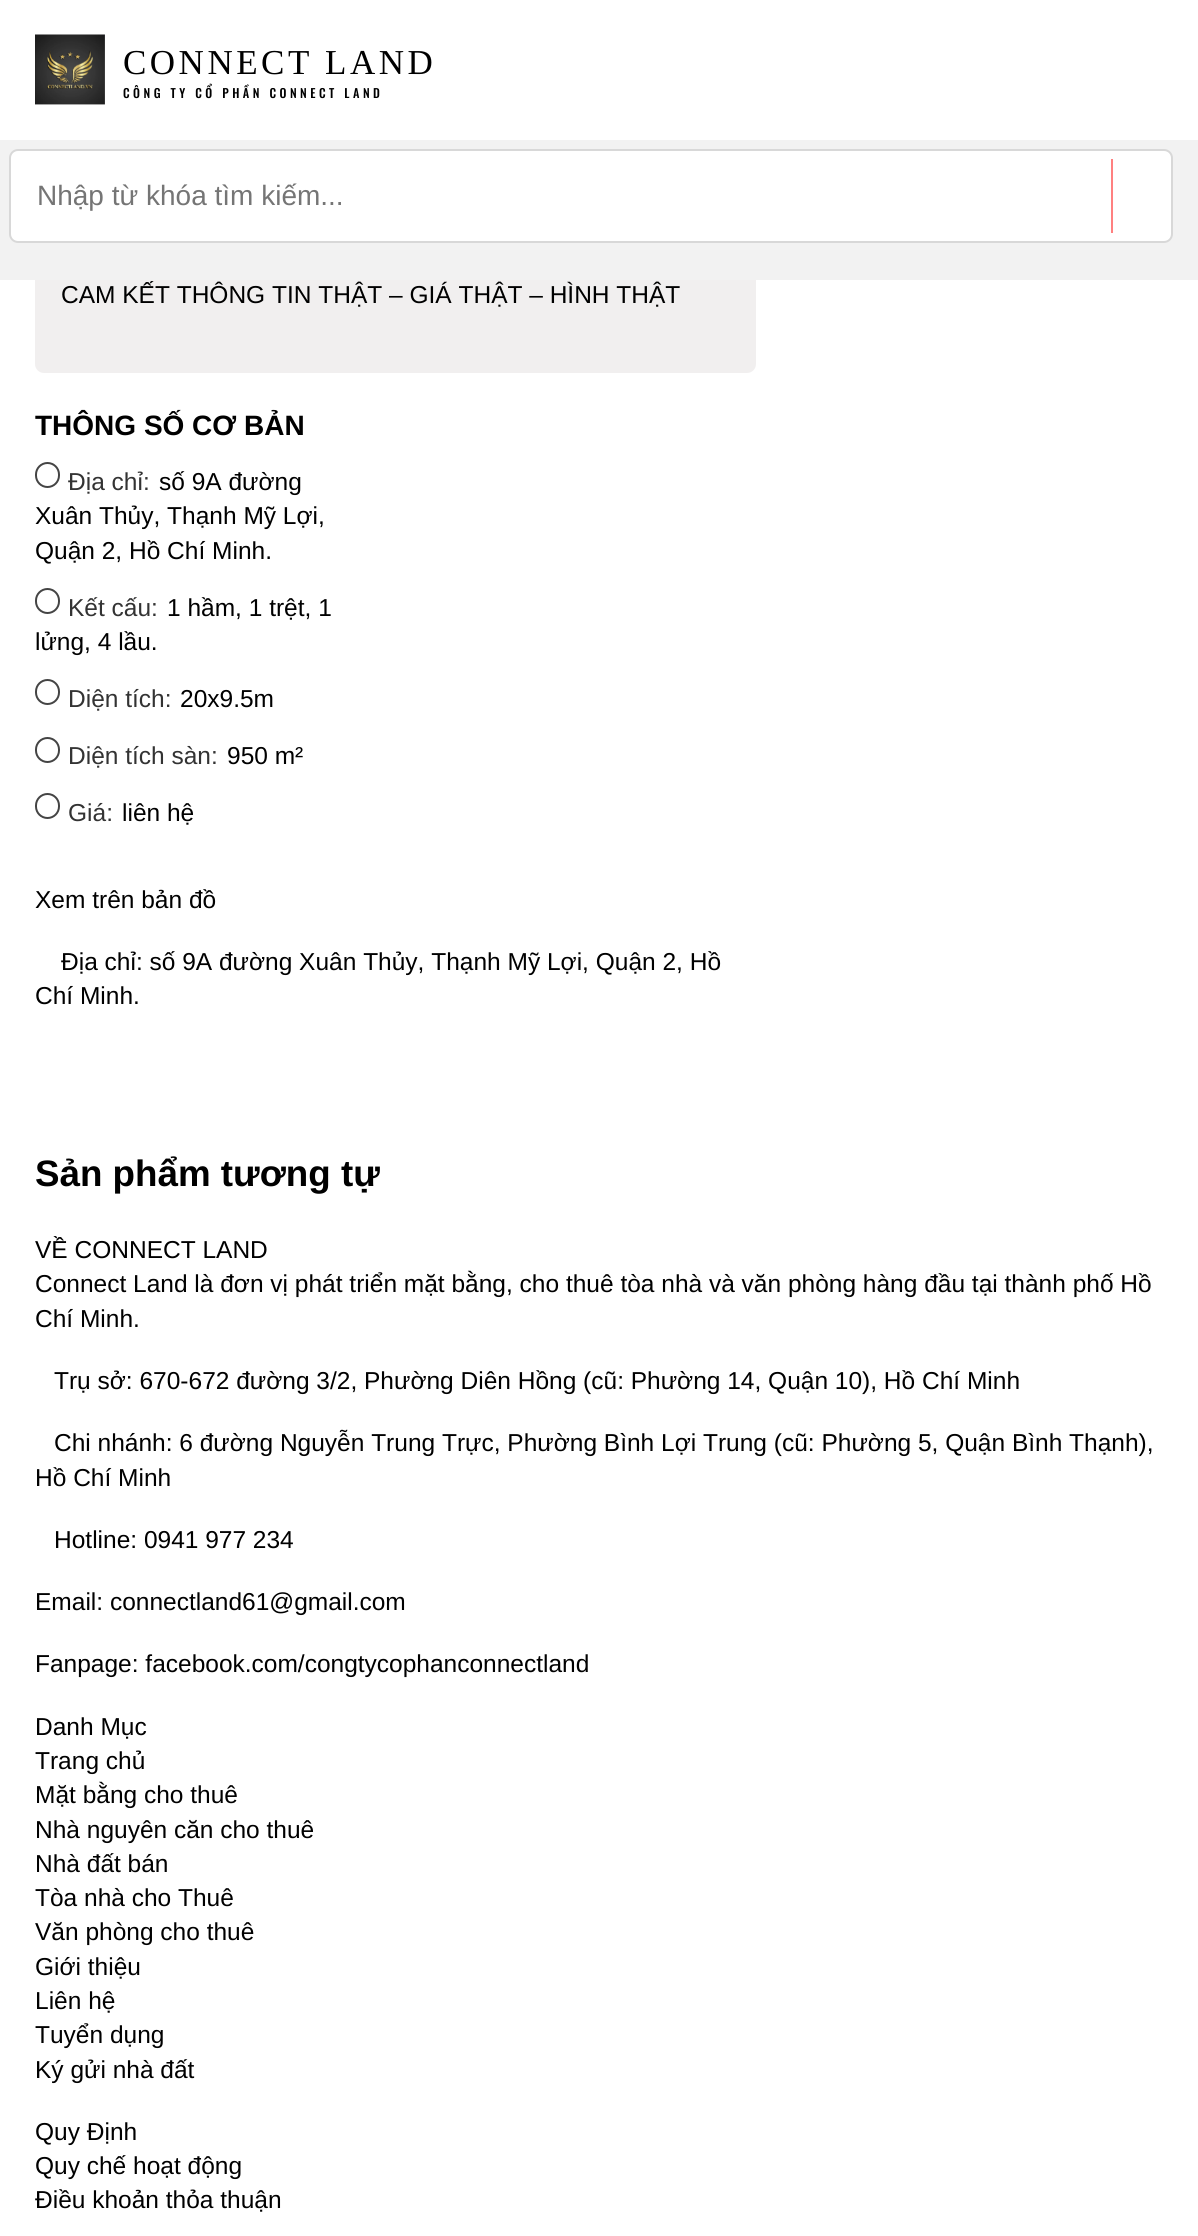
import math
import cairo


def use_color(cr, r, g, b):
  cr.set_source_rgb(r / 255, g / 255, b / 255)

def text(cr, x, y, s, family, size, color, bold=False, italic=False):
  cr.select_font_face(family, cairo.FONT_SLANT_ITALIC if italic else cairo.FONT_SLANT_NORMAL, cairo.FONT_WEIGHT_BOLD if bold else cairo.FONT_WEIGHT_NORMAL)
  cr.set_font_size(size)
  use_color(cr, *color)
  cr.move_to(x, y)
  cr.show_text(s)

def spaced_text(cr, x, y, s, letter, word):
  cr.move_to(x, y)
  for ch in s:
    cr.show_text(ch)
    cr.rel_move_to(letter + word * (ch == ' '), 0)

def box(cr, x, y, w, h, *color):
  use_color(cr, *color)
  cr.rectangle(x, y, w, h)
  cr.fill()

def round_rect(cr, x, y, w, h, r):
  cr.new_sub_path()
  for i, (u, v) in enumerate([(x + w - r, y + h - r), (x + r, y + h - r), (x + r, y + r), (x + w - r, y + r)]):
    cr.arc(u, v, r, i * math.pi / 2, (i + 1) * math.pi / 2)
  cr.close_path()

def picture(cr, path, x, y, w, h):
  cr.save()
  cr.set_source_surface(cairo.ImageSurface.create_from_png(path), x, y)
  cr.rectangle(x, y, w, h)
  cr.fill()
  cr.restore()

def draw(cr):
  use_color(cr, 255, 255, 255)
  cr.paint()
  use_color(cr, 241, 239, 239)
  round_rect(cr, 35, -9, 721, 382, 9)
  cr.fill()
  box(cr, 35, 0, 721, 140, 255, 255, 255)
  picture(cr, "img_01.png", 35, 34, 70, 71)
  box(cr, 0, 140, 1198, 140, 242, 242, 242)
  use_color(cr, 255, 255, 255)
  round_rect(cr, 10, 150, 1162, 92, 8)
  cr.fill_preserve()
  use_color(cr, 216, 216, 216)
  cr.stroke()
  box(cr, 1111, 159, 2, 74, 255, 128, 128)
  round_rect(cr, 36, 463, 23, 24, 11.5)
  use_color(cr, 68, 68, 68)
  cr.stroke()
  round_rect(cr, 36, 589, 23, 24, 11.5)
  cr.stroke()
  round_rect(cr, 36, 680, 23, 24, 11.5)
  cr.stroke()
  round_rect(cr, 36, 738, 23, 24, 11.5)
  cr.stroke()
  round_rect(cr, 36, 794, 23, 24, 11.5)
  cr.stroke()
  cr.select_font_face("Liberation Serif")
  cr.set_font_size(35)
  use_color(cr, 0, 0, 0)
  spaced_text(cr, 123, 74, "CONNECT LAND", 3.5, 0)
  cr.select_font_face("Oswald Medium")
  cr.set_font_size(12.25)
  spaced_text(cr, 123, 98, "CÔNG TY CỔ PHẦN CONNECT LAND", 3.5, 0)
  text(cr, 37, 205, "Nhập từ khóa tìm kiếm...", "Liberation Sans", 28, (117, 117, 117))
  text(cr, 61, 303, "CAM KẾT THÔNG TIN THẬT – GIÁ THẬT – HÌNH THẬT", "Liberation Sans", 24.5, (0, 0, 0))
  text(cr, 35, 435, "THÔNG SỐ CƠ BẢN", "Liberation Sans", 28, (0, 0, 0), bold=True)
  text(cr, 68, 490, "Địa chỉ:", "Liberation Sans", 24.5, (51, 51, 51))
  text(cr, 159, 490, "số 9A đường", "Liberation Sans", 24.5, (0, 0, 0))
  text(cr, 35, 524, "Xuân Thủy, Thạnh Mỹ Lợi,", "Liberation Sans", 24.5, (0, 0, 0))
  text(cr, 35, 559, "Quận 2, Hồ Chí Minh.", "Liberation Sans", 24.5, (0, 0, 0))
  text(cr, 68, 616, "Kết cấu:", "Liberation Sans", 24.5, (51, 51, 51))
  text(cr, 167, 616, "1 hầm, 1 trệt, 1", "Liberation Sans", 24.5, (0, 0, 0))
  text(cr, 35, 650, "lửng, 4 lầu.", "Liberation Sans", 24.5, (0, 0, 0))
  text(cr, 68, 707, "Diện tích:", "Liberation Sans", 24.5, (51, 51, 51))
  text(cr, 180, 707, "20x9.5m", "Liberation Sans", 24.5, (0, 0, 0))
  text(cr, 68, 764, "Diện tích sàn:", "Liberation Sans", 24.5, (51, 51, 51))
  text(cr, 227, 764, "950 m²", "Liberation Sans", 24.5, (0, 0, 0))
  text(cr, 68, 821, "Giá:", "Liberation Sans", 24.5, (51, 51, 51))
  text(cr, 122, 821, "liên hệ", "Liberation Sans", 24.5, (0, 0, 0))
  text(cr, 35, 908, "Xem trên bản đồ", "Liberation Sans", 24.5, (0, 0, 0))
  text(cr, 61, 970, "Địa chỉ: số 9A đường Xuân Thủy, Thạnh Mỹ Lợi, Quận 2, Hồ", "Liberation Sans", 24.5, (0, 0, 0))
  text(cr, 35, 1004, "Chí Minh.", "Liberation Sans", 24.5, (0, 0, 0))
  text(cr, 35, 1186, "Sản phẩm tương tự", "Liberation Sans", 36.75, (0, 0, 0), bold=True)
  text(cr, 35, 1258, "VỀ CONNECT LAND", "Liberation Sans", 24.5, (0, 0, 0))
  text(cr, 35, 1292, "Connect Land là đơn vị phát triển mặt bằng, cho thuê tòa nhà và văn phòng hàng đầu tại thành phố Hồ", "Liberation Sans", 24.5, (0, 0, 0))
  text(cr, 35, 1327, "Chí Minh.", "Liberation Sans", 24.5, (0, 0, 0))
  text(cr, 54, 1389, "Trụ sở: 670-672 đường 3/2, Phường Diên Hồng (cũ: Phường 14, Quận 10), Hồ Chí Minh", "Liberation Sans", 24.5, (0, 0, 0))
  text(cr, 54, 1451, "Chi nhánh: 6 đường Nguyễn Trung Trực, Phường Bình Lợi Trung (cũ: Phường 5, Quận Bình Thạnh),", "Liberation Sans", 24.5, (0, 0, 0))
  text(cr, 35, 1486, "Hồ Chí Minh", "Liberation Sans", 24.5, (0, 0, 0))
  text(cr, 54, 1548, "Hotline: 0941 977 234", "Liberation Sans", 24.5, (0, 0, 0))
  text(cr, 35, 1610, "Email: connectland61@gmail.com", "Liberation Sans", 24.5, (0, 0, 0))
  text(cr, 35, 1672, "Fanpage: facebook.com/congtycophanconnectland", "Liberation Sans", 24.5, (0, 0, 0))
  text(cr, 35, 1735, "Danh Mục", "Liberation Sans", 24.5, (0, 0, 0))
  text(cr, 35, 1769, "Trang chủ", "Liberation Sans", 24.5, (0, 0, 0))
  text(cr, 35, 1803, "Mặt bằng cho thuê", "Liberation Sans", 24.5, (0, 0, 0))
  text(cr, 35, 1838, "Nhà nguyên căn cho thuê", "Liberation Sans", 24.5, (0, 0, 0))
  text(cr, 35, 1872, "Nhà đất bán", "Liberation Sans", 24.5, (0, 0, 0))
  text(cr, 35, 1906, "Tòa nhà cho Thuê", "Liberation Sans", 24.5, (0, 0, 0))
  text(cr, 35, 1940, "Văn phòng cho thuê", "Liberation Sans", 24.5, (0, 0, 0))
  text(cr, 35, 1975, "Giới thiệu", "Liberation Sans", 24.5, (0, 0, 0))
  text(cr, 35, 2009, "Liên hệ", "Liberation Sans", 24.5, (0, 0, 0))
  text(cr, 35, 2043, "Tuyển dụng", "Liberation Sans", 24.5, (0, 0, 0))
  text(cr, 35, 2078, "Ký gửi nhà đất", "Liberation Sans", 24.5, (0, 0, 0))
  text(cr, 35, 2140, "Quy Định", "Liberation Sans", 24.5, (0, 0, 0))
  text(cr, 35, 2174, "Quy chế hoạt động", "Liberation Sans", 24.5, (0, 0, 0))
  text(cr, 35, 2208, "Điều khoản thỏa thuận", "Liberation Sans", 24.5, (0, 0, 0))


surface = cairo.ImageSurface(cairo.FORMAT_RGB24, 1198, 2236)
cr = cairo.Context(surface)
options = cairo.FontOptions()
options.set_hint_metrics(cairo.HINT_METRICS_OFF)
options.set_hint_style(cairo.HINT_STYLE_NONE)
cr.set_font_options(options)
cr.set_miter_limit(4)
draw(cr)
surface.write_to_png("out.png")
